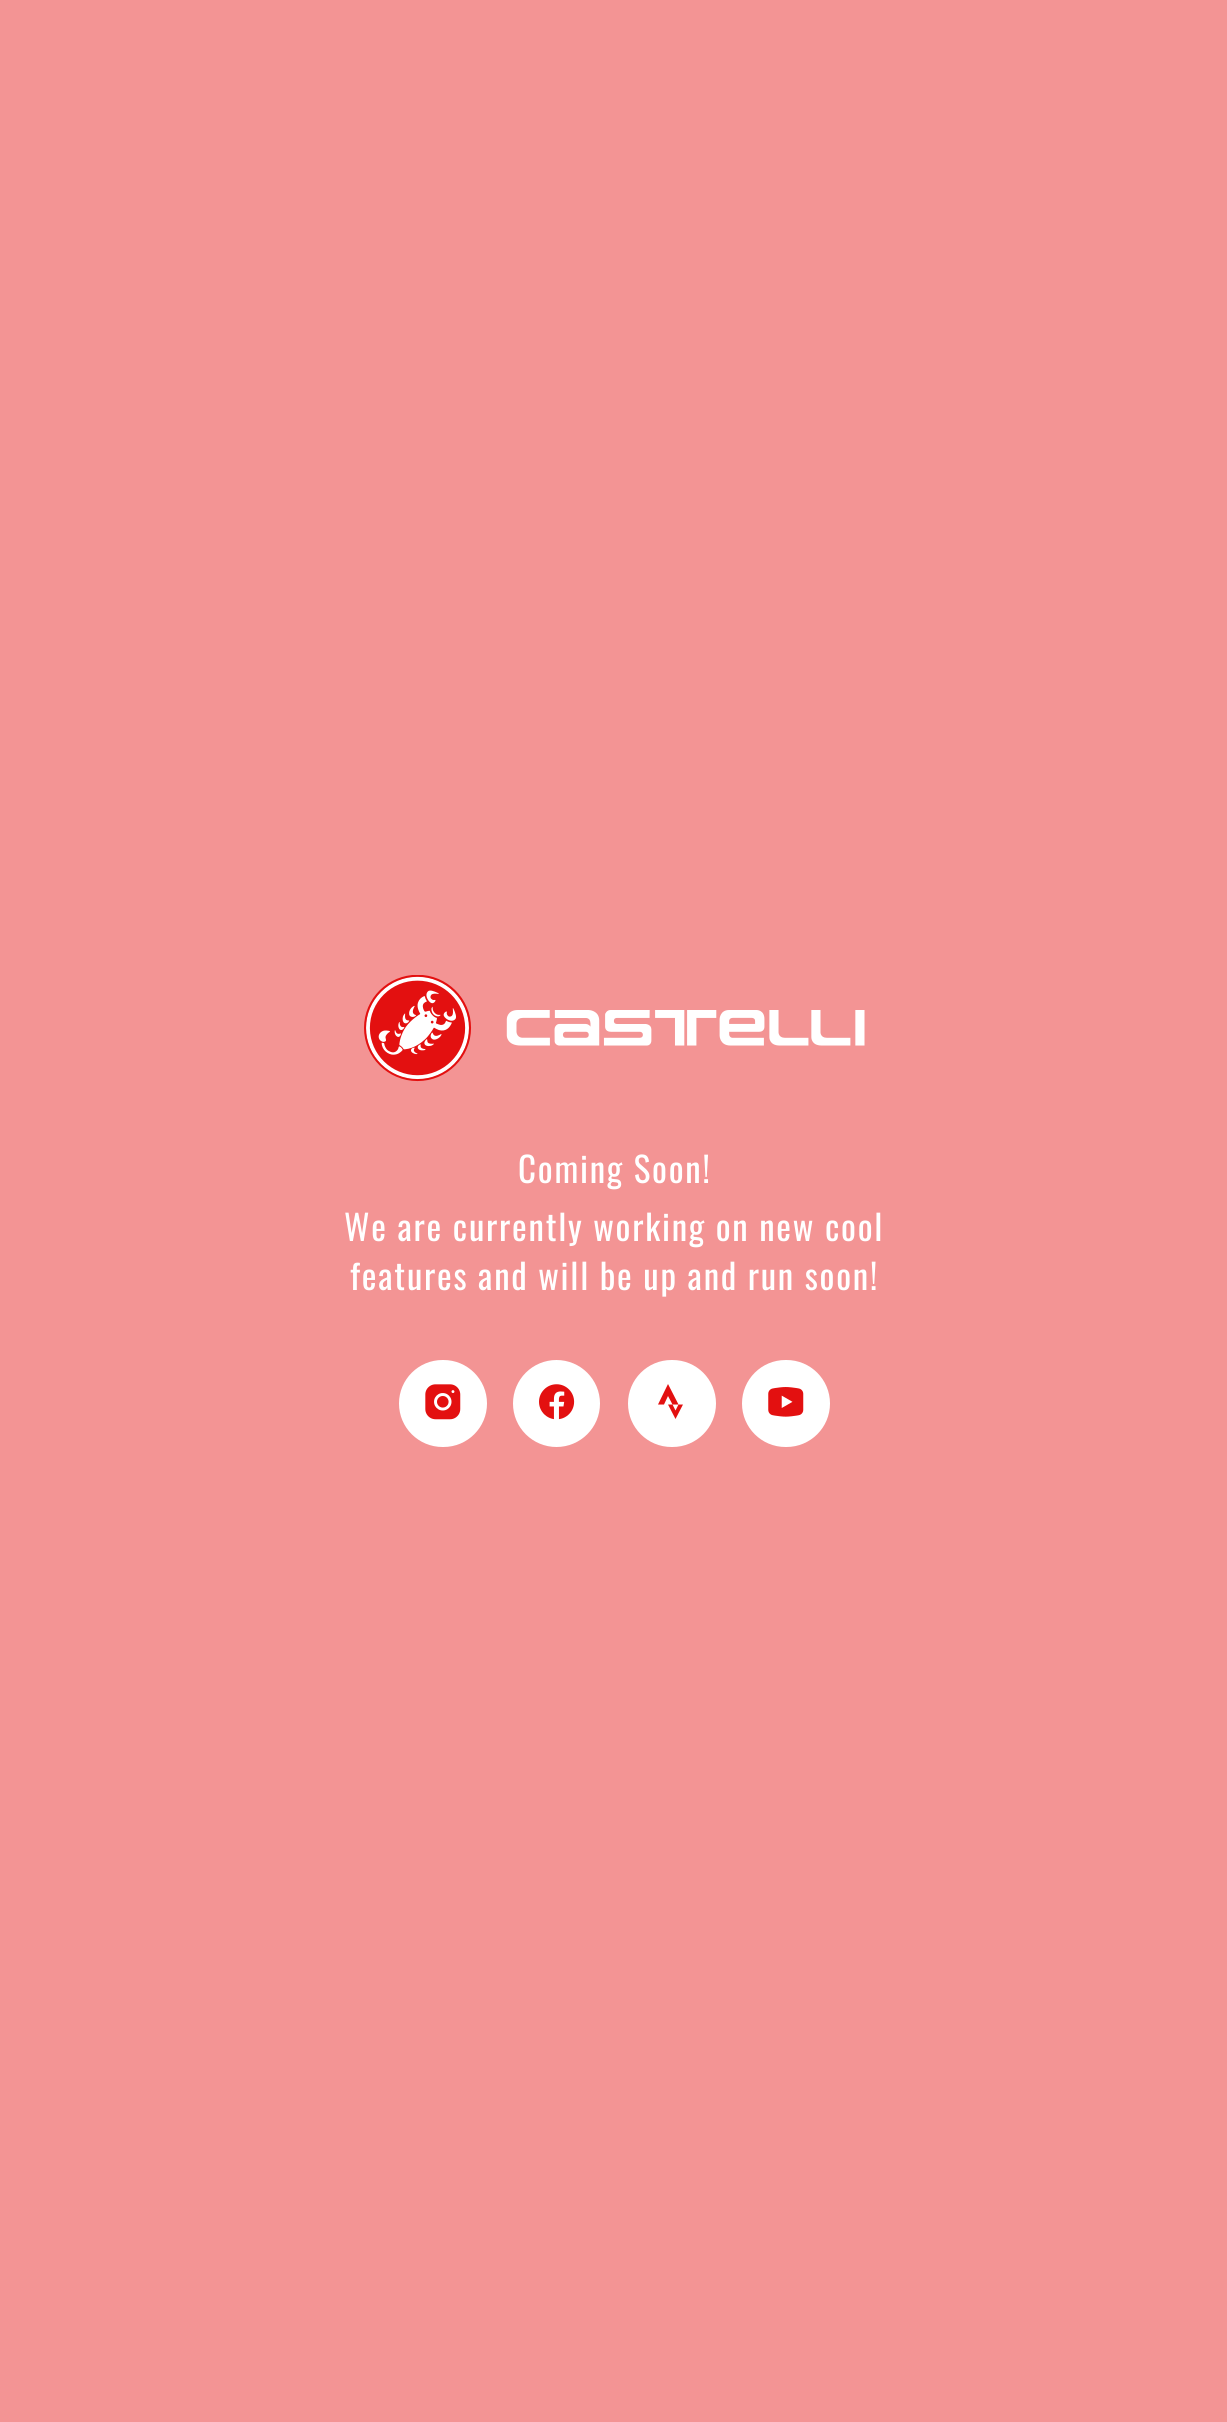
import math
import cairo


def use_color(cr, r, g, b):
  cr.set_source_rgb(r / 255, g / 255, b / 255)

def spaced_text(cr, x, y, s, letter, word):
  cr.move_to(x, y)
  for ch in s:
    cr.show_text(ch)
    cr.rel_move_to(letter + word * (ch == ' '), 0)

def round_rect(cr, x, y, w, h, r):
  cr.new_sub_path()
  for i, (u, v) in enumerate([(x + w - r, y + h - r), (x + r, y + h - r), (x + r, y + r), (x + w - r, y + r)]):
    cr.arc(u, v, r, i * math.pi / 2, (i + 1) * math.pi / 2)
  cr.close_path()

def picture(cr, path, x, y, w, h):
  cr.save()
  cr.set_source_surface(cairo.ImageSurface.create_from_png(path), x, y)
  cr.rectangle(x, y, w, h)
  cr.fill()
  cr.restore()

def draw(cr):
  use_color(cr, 243, 148, 148)
  cr.paint()
  picture(cr, "img_01.png", 364, 975, 501, 107)
  use_color(cr, 255, 255, 255)
  round_rect(cr, 399, 1360, 88, 87, 43.5)
  cr.fill()
  picture(cr, "img_02.png", 425, 1384, 36, 36)
  cr.arc(556.5, 1403.5, 43.5, 0, 2 * math.pi)
  cr.fill()
  picture(cr, "img_03.png", 539, 1384, 36, 36)
  round_rect(cr, 628, 1360, 88, 87, 43.5)
  cr.fill()
  use_color(cr, 227, 16, 16)
  cr.new_path()
  cr.move_to(668, 1384)
  cr.line_to(658, 1404.5)
  cr.line_to(664, 1404.5)
  cr.line_to(668, 1396)
  cr.line_to(672.5, 1404.5)
  cr.line_to(678.5, 1404.5)
  cr.close_path()
  cr.move_to(678.5, 1404.5)
  cr.line_to(675.5, 1410.5)
  cr.line_to(672.5, 1404.5)
  cr.line_to(668, 1404.5)
  cr.line_to(675.5, 1419)
  cr.line_to(683, 1404.5)
  cr.close_path()
  cr.fill()
  use_color(cr, 255, 255, 255)
  round_rect(cr, 742, 1360, 88, 87, 43.5)
  cr.fill()
  picture(cr, "img_04.png", 768, 1387, 36, 30)
  cr.select_font_face("Oswald")
  cr.set_font_size(35)
  spaced_text(cr, 518, 1183, "Coming Soon!", 1.75, 0)
  spaced_text(cr, 344, 1241, "We are currently working on new cool", 1.75, 0)
  spaced_text(cr, 350, 1290, "features and will be up and run soon!", 1.75, 0)


surface = cairo.ImageSurface(cairo.FORMAT_RGB24, 1227, 2422)
cr = cairo.Context(surface)
options = cairo.FontOptions()
options.set_hint_metrics(cairo.HINT_METRICS_OFF)
options.set_hint_style(cairo.HINT_STYLE_NONE)
cr.set_font_options(options)
cr.set_miter_limit(4)
draw(cr)
surface.write_to_png("out.png")
